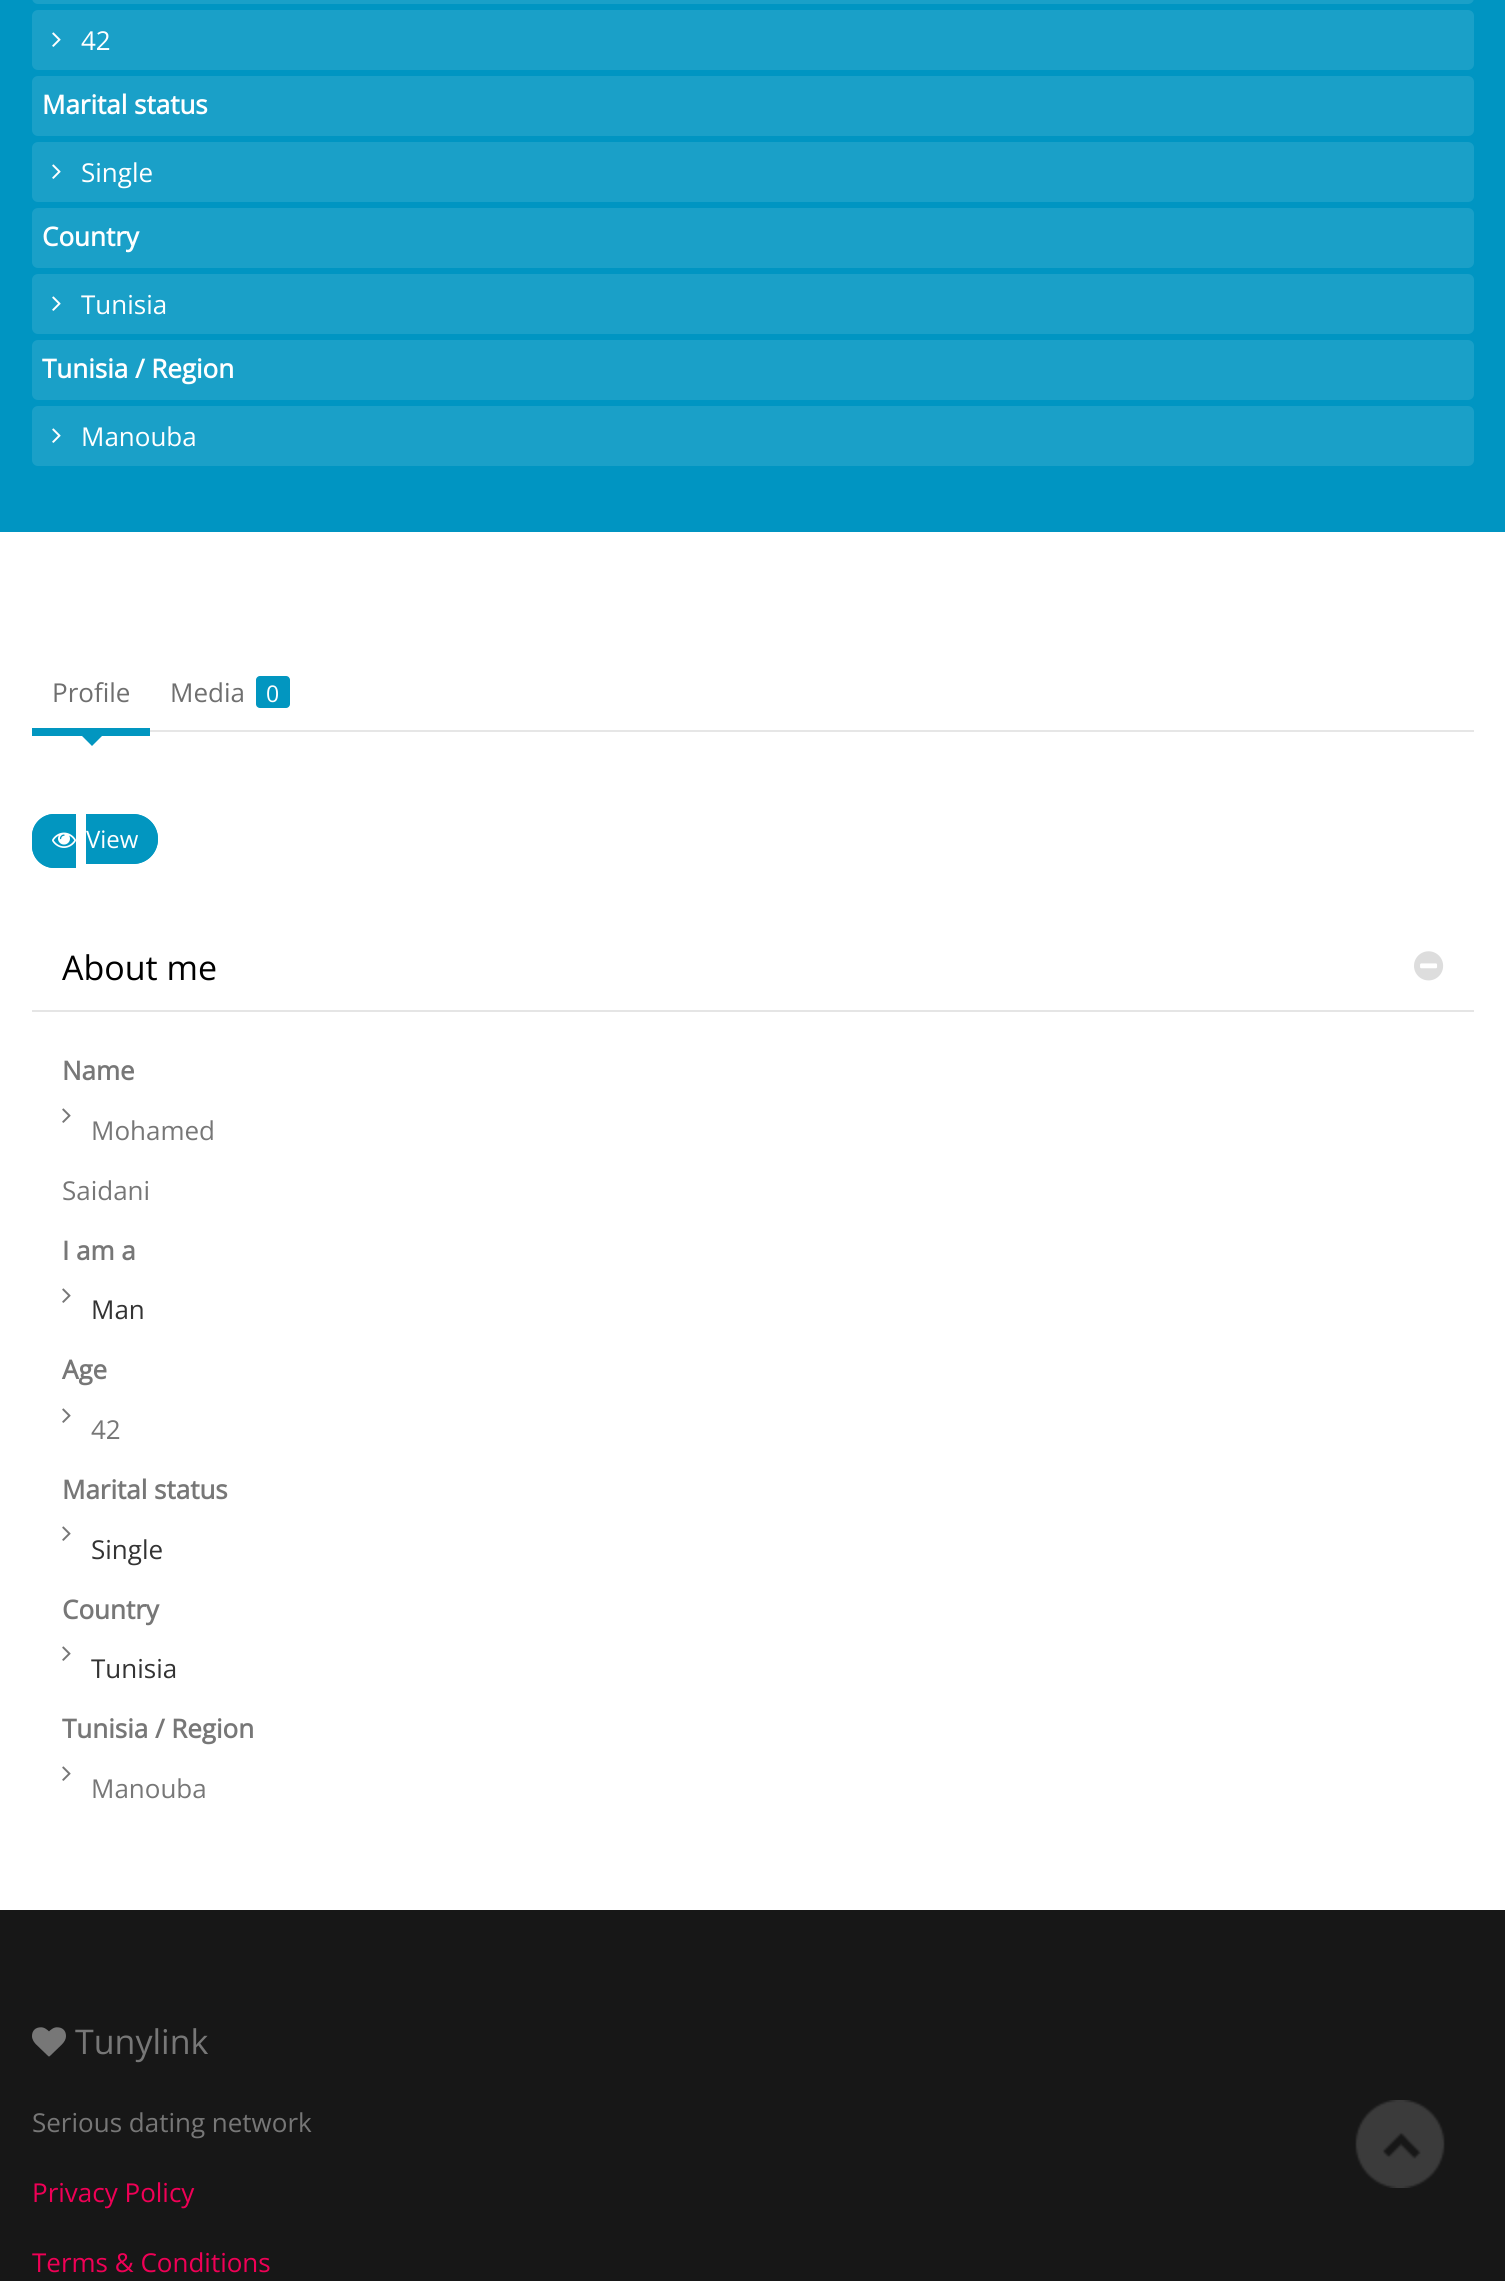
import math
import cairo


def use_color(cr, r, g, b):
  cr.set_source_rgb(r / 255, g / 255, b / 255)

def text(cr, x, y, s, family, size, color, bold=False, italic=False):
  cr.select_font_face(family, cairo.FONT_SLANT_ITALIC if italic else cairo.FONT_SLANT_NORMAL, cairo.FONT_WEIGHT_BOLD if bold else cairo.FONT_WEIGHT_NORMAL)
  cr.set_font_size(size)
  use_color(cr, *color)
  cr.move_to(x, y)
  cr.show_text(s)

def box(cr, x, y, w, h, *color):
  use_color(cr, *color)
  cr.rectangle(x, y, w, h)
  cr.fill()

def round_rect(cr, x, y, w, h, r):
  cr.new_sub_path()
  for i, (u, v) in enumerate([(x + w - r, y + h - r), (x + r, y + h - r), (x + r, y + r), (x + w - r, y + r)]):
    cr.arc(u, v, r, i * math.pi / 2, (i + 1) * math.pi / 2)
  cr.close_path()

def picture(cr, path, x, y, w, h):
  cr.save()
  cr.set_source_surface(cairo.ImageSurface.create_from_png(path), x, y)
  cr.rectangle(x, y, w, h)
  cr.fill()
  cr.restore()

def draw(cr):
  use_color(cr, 255, 255, 255)
  cr.paint()
  box(cr, 0, 0, 1505, 532, 0, 149, 194)
  use_color(cr, 26, 160, 200)
  round_rect(cr, 32, -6, 1442, 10, 6)
  cr.fill()
  round_rect(cr, 32, 10, 1442, 60, 6)
  cr.fill()
  picture(cr, "img_01.png", 52, 32, 9, 15)
  round_rect(cr, 32, 76, 1442, 60, 6)
  cr.fill()
  round_rect(cr, 32, 142, 1442, 60, 6)
  cr.fill()
  picture(cr, "img_01.png", 52, 164, 9, 15)
  round_rect(cr, 32, 208, 1442, 60, 6)
  cr.fill()
  round_rect(cr, 32, 274, 1442, 60, 6)
  cr.fill()
  picture(cr, "img_01.png", 52, 296, 9, 15)
  round_rect(cr, 32, 340, 1442, 60, 6)
  cr.fill()
  round_rect(cr, 32, 406, 1442, 60, 6)
  cr.fill()
  picture(cr, "img_01.png", 52, 428, 9, 15)
  box(cr, 150, 730, 1324, 2, 230, 230, 230)
  box(cr, 32, 728, 118, 8, 2, 150, 192)
  cr.new_path()
  cr.move_to(82, 736)
  cr.line_to(102, 736)
  cr.line_to(92, 746)
  cr.close_path()
  cr.fill()
  round_rect(cr, 256, 676, 34, 32, 4)
  cr.fill()
  cr.new_path()
  cr.move_to(54, 814)
  cr.line_to(76, 814)
  cr.line_to(76, 868)
  cr.line_to(54, 868)
  cr.curve_to(42, 868, 32, 858, 32, 846)
  cr.line_to(32, 836)
  cr.curve_to(32, 824, 42, 814, 54, 814)
  cr.close_path()
  cr.fill()
  cr.set_fill_rule(cairo.FILL_RULE_EVEN_ODD)
  cr.new_path()
  cr.move_to(54, 814)
  cr.line_to(76, 814)
  cr.line_to(76, 868)
  cr.line_to(54, 868)
  cr.curve_to(42, 868, 32, 858, 32, 846)
  cr.line_to(32, 836)
  cr.curve_to(32, 824, 42, 814, 54, 814)
  cr.close_path()
  cr.move_to(54, 816)
  cr.line_to(76, 816)
  cr.line_to(76, 866)
  cr.line_to(54, 866)
  cr.curve_to(43, 866, 34, 857, 34, 846)
  cr.line_to(34, 836)
  cr.curve_to(34, 825, 43, 816, 54, 816)
  cr.close_path()
  cr.fill()
  cr.new_path()
  cr.move_to(86, 814)
  cr.line_to(133, 814)
  cr.curve_to(147, 814, 158, 825, 158, 839)
  cr.curve_to(158, 853, 147, 864, 133, 864)
  cr.line_to(86, 864)
  cr.close_path()
  cr.fill()
  cr.new_path()
  cr.move_to(86, 814)
  cr.line_to(133, 814)
  cr.curve_to(147, 814, 158, 825, 158, 839)
  cr.curve_to(158, 853, 147, 864, 133, 864)
  cr.line_to(86, 864)
  cr.close_path()
  cr.move_to(86, 816)
  cr.line_to(133, 816)
  cr.curve_to(146, 816, 156, 826, 156, 839)
  cr.curve_to(156, 852, 146, 862, 133, 862)
  cr.line_to(86, 862)
  cr.close_path()
  cr.fill()
  picture(cr, "img_02.png", 52, 832, 24, 16)
  box(cr, 32, 1010, 1442, 2, 229, 229, 229)
  picture(cr, "img_03.png", 1414, 951, 30, 30)
  picture(cr, "img_04.png", 62, 1108, 9, 15)
  picture(cr, "img_04.png", 62, 1288, 9, 15)
  picture(cr, "img_04.png", 62, 1408, 9, 15)
  picture(cr, "img_04.png", 62, 1526, 9, 15)
  picture(cr, "img_04.png", 62, 1646, 9, 15)
  picture(cr, "img_04.png", 62, 1766, 9, 15)
  box(cr, 0, 1910, 1505, 371, 23, 23, 23)
  picture(cr, "img_05.png", 32, 2027, 34, 30)
  picture(cr, "img_06.png", 1355, 2100, 90, 88)
  text(cr, 81, 50, "42", "Open Sans", 26, (255, 255, 255))
  text(cr, 42, 114, "Marital status", "Open Sans", 26, (255, 255, 255), bold=True)
  text(cr, 81, 182, "Single", "Open Sans", 26, (255, 255, 255))
  text(cr, 42, 246, "Country", "Open Sans", 26, (255, 255, 255), bold=True)
  text(cr, 81, 314, "Tunisia", "Open Sans", 26, (255, 255, 255))
  text(cr, 42, 378, "Tunisia / Region", "Open Sans", 26, (255, 255, 255), bold=True)
  text(cr, 81, 446, "Manouba", "Open Sans", 26, (255, 255, 255))
  text(cr, 52, 702, "Profile", "Open Sans", 26, (111, 111, 111))
  text(cr, 170, 702, "Media", "Open Sans", 26, (111, 111, 111))
  text(cr, 266, 702, "0", "Open Sans", 23, (255, 255, 255))
  text(cr, 86, 848, "View", "Open Sans", 24, (255, 255, 255))
  text(cr, 62, 980, "About me", "Open Sans", 34, (0, 0, 0))
  text(cr, 62, 1080, "Name", "Open Sans", 26, (119, 119, 119), bold=True)
  text(cr, 91, 1140, "Mohamed", "Open Sans", 26, (119, 119, 119))
  text(cr, 62, 1200, "Saidani", "Open Sans", 26, (119, 119, 119))
  text(cr, 62, 1260, "I am a", "Open Sans", 26, (119, 119, 119), bold=True)
  text(cr, 91, 1319, "Man", "Open Sans", 26, (51, 51, 51))
  text(cr, 62, 1379, "Age", "Open Sans", 26, (119, 119, 119), bold=True)
  text(cr, 91, 1439, "42", "Open Sans", 26, (119, 119, 119))
  text(cr, 62, 1499, "Marital status", "Open Sans", 26, (119, 119, 119), bold=True)
  text(cr, 91, 1559, "Single", "Open Sans", 26, (51, 51, 51))
  text(cr, 62, 1619, "Country", "Open Sans", 26, (119, 119, 119), bold=True)
  text(cr, 91, 1678, "Tunisia", "Open Sans", 26, (51, 51, 51))
  text(cr, 62, 1738, "Tunisia / Region", "Open Sans", 26, (119, 119, 119), bold=True)
  text(cr, 91, 1798, "Manouba", "Open Sans", 26, (119, 119, 119))
  text(cr, 75, 2054, "Tunylink", "Open Sans", 34, (119, 119, 119))
  text(cr, 32, 2132, "Serious dating network", "Open Sans", 26, (119, 119, 119))
  text(cr, 32, 2202, "Privacy Policy", "Open Sans", 26, (240, 0, 86))
  text(cr, 32, 2272, "Terms & Conditions", "Open Sans", 26, (240, 0, 86))


surface = cairo.ImageSurface(cairo.FORMAT_RGB24, 1505, 2281)
cr = cairo.Context(surface)
options = cairo.FontOptions()
options.set_hint_metrics(cairo.HINT_METRICS_OFF)
options.set_hint_style(cairo.HINT_STYLE_NONE)
cr.set_font_options(options)
cr.set_miter_limit(4)
draw(cr)
surface.write_to_png("out.png")
